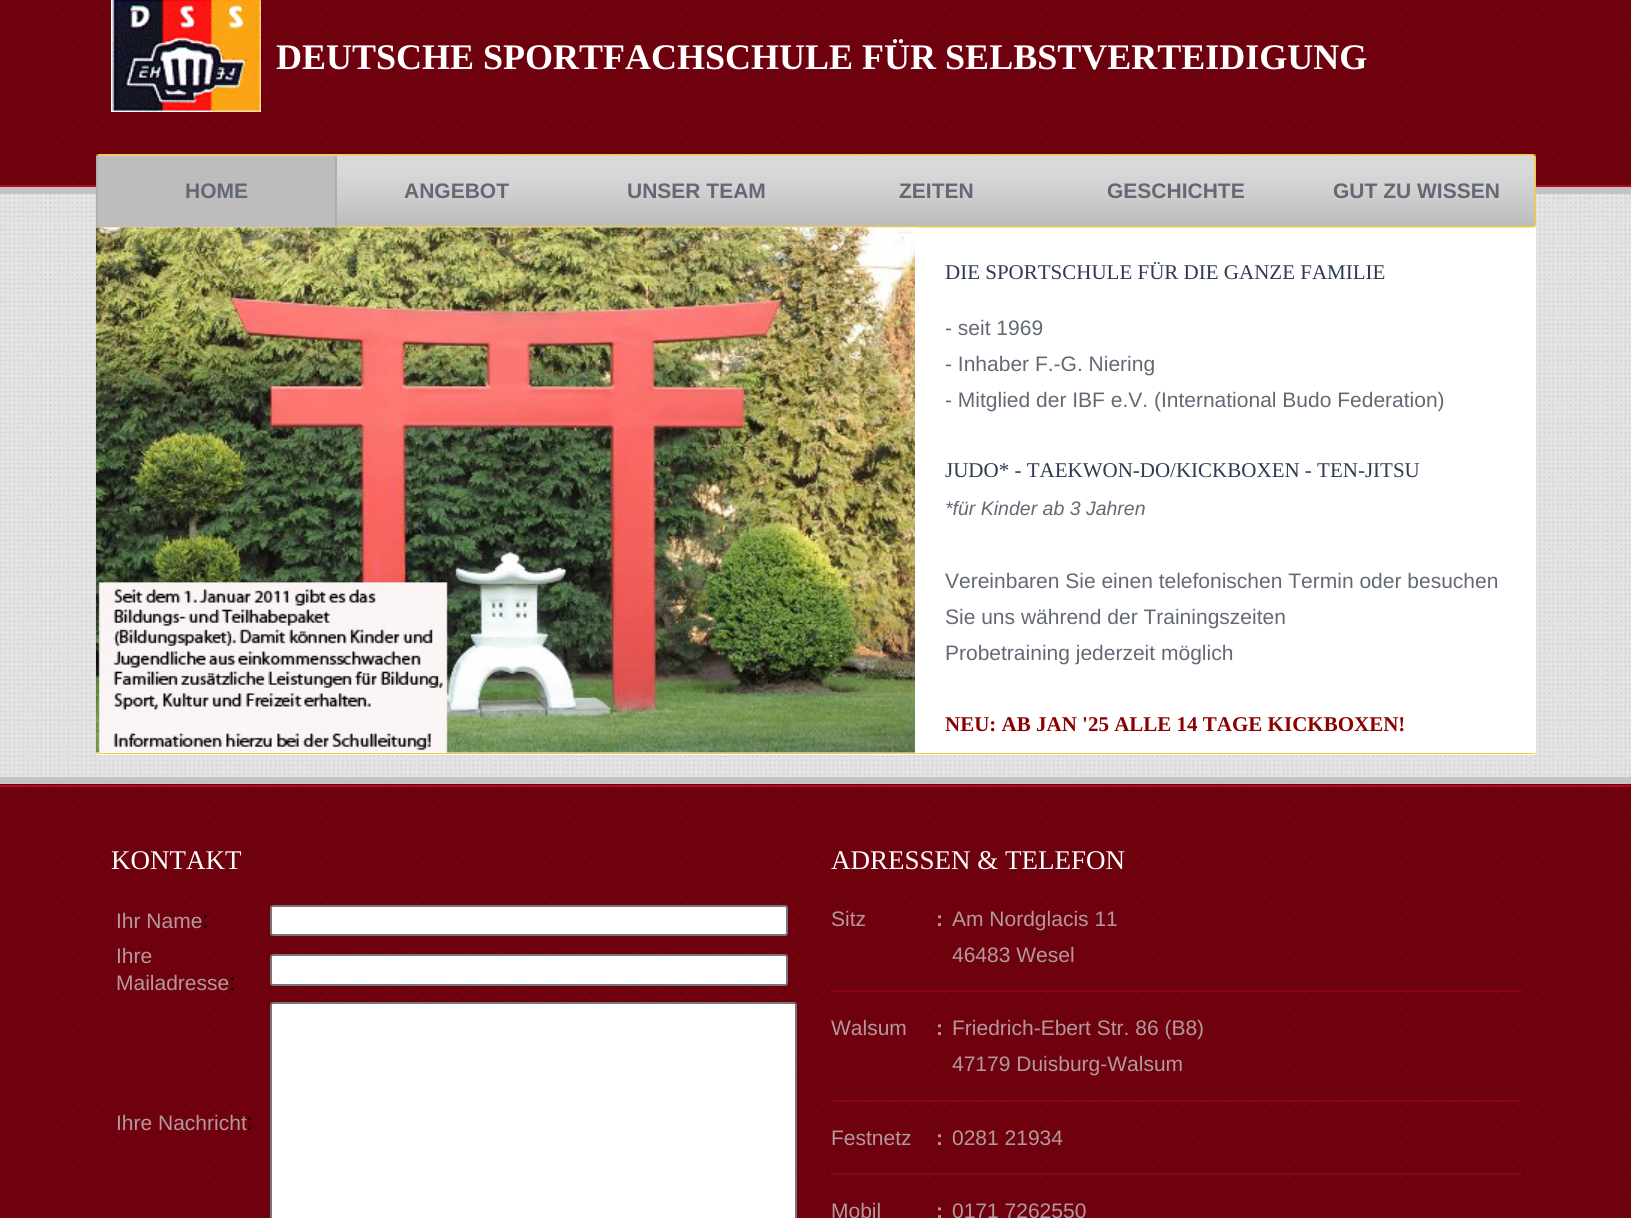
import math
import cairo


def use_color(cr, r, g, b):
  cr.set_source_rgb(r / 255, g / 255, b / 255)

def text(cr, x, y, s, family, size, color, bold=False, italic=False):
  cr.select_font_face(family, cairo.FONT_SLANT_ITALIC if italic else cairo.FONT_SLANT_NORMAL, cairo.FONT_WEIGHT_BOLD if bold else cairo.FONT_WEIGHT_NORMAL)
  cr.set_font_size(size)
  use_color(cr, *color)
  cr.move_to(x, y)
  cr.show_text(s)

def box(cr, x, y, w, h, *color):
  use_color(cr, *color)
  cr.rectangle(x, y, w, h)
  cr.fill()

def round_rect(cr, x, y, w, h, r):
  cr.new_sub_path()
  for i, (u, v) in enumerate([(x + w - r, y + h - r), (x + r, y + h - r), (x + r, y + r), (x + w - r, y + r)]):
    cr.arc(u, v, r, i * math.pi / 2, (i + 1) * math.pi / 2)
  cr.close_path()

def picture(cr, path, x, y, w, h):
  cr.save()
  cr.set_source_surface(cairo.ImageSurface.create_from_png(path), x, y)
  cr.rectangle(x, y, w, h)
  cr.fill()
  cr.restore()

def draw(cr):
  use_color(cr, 255, 255, 255)
  cr.paint()
  picture(cr, "img_01.png", 0, 194, 1631, 583)
  box(cr, 0, 187, 1631, 7, 195, 195, 195)
  picture(cr, "img_02.png", 0, 0, 1631, 185)
  box(cr, 0, 185, 1631, 2, 182, 5, 28)
  picture(cr, "img_03.png", 111, 0, 150, 112)
  use_color(cr, 255, 255, 255)
  cr.new_path()
  cr.move_to(96, 194)
  cr.line_to(1536, 194)
  cr.line_to(1536, 753.5)
  cr.curve_to(1536, 754.5, 1535.5, 755, 1534.5, 755)
  cr.line_to(97.5, 755)
  cr.curve_to(96.5, 755, 96, 754.5, 96, 753.5)
  cr.close_path()
  cr.fill()
  picture(cr, "img_04.png", 96, 154, 1440, 74)
  box(cr, 98, 156, 237, 71, 190, 188, 188)
  box(cr, 335, 156, 2, 71, 175, 175, 175)
  box(cr, 96, 156, 2, 71, 175, 175, 175)
  picture(cr, "img_05.png", 96, 751, 1440, 3)
  picture(cr, "img_06.png", 96, 751, 1440, 3)
  use_color(cr, 255, 255, 255)
  cr.new_path()
  cr.move_to(96, 228)
  cr.line_to(1536, 228)
  cr.line_to(1536, 751.5)
  cr.curve_to(1536, 752.5, 1535.5, 753, 1534.5, 753)
  cr.line_to(97.5, 753)
  cr.curve_to(96.5, 753, 96, 752.5, 96, 751.5)
  cr.close_path()
  cr.fill()
  picture(cr, "img_07.png", 96, 227, 819, 526)
  box(cr, 0, 777, 1631, 7, 195, 195, 195)
  picture(cr, "img_08.png", 0, 784, 1631, 434)
  box(cr, 0, 785, 1631, 2, 182, 5, 28)
  use_color(cr, 255, 255, 255)
  round_rect(cr, 271, 906, 516, 29, 2)
  cr.fill_preserve()
  use_color(cr, 118, 118, 118)
  cr.stroke()
  use_color(cr, 255, 255, 255)
  round_rect(cr, 271, 955, 516, 30, 2)
  cr.fill_preserve()
  use_color(cr, 118, 118, 118)
  cr.stroke()
  use_color(cr, 255, 255, 255)
  round_rect(cr, 271, 1003, 525, 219, 2)
  cr.fill_preserve()
  use_color(cr, 118, 118, 118)
  cr.stroke()
  box(cr, 831, 990, 690, 2, 138, 4, 19)
  box(cr, 831, 1100, 690, 2, 138, 4, 19)
  box(cr, 831, 1173, 690, 2, 138, 4, 19)
  text(cr, 276, 69, "DEUTSCHE SPORTFACHSCHULE FÜR SELBSTVERTEIDIGUNG", "Liberation Serif", 36, (255, 255, 255), bold=True)
  text(cr, 185, 198, "HOME", "Liberation Sans", 21, (99, 105, 116), bold=True)
  text(cr, 404, 198, "ANGEBOT", "Liberation Sans", 21, (99, 105, 116), bold=True)
  text(cr, 627, 198, "UNSER TEAM", "Liberation Sans", 21, (99, 105, 116), bold=True)
  text(cr, 899, 198, "ZEITEN", "Liberation Sans", 21, (99, 105, 116), bold=True)
  text(cr, 1107, 198, "GESCHICHTE", "Liberation Sans", 21, (99, 105, 116), bold=True)
  text(cr, 1333, 198, "GUT ZU WISSEN", "Liberation Sans", 21, (99, 105, 116), bold=True)
  text(cr, 945, 279, "DIE SPORTSCHULE FÜR DIE GANZE FAMILIE", "Liberation Serif", 21, (46, 58, 84))
  text(cr, 945, 335, "- seit 1969", "Liberation Sans", 21, (99, 105, 116))
  text(cr, 945, 371, "- Inhaber F.-G. Niering", "Liberation Sans", 21, (99, 105, 116))
  text(cr, 945, 407, "- Mitglied der IBF e.V. (International Budo Federation)", "Liberation Sans", 21, (99, 105, 116))
  text(cr, 945, 477, "JUDO* - TAEKWON-DO/KICKBOXEN - TEN-JITSU", "Liberation Serif", 21, (46, 58, 84))
  text(cr, 945, 515, "*für Kinder ab 3 Jahren", "Liberation Sans", 19.5, (99, 105, 116), italic=True)
  text(cr, 945, 588, "Vereinbaren Sie einen telefonischen Termin oder besuchen", "Liberation Sans", 21, (99, 105, 116))
  text(cr, 945, 624, "Sie uns während der Trainingszeiten", "Liberation Sans", 21, (99, 105, 116))
  text(cr, 945, 660, "Probetraining jederzeit möglich", "Liberation Sans", 21, (99, 105, 116))
  text(cr, 945, 731, "NEU: AB JAN '25 ALLE 14 TAGE KICKBOXEN!", "Liberation Serif", 21, (139, 0, 0), bold=True)
  text(cr, 111, 869, "KONTAKT", "Liberation Serif", 27, (255, 255, 255))
  text(cr, 116, 928, "Ihr Name", "Liberation Sans", 21, (179, 153, 156))
  text(cr, 202, 928, ":", "Liberation Sans", 24, (0, 0, 0))
  text(cr, 116, 963, "Ihre", "Liberation Sans", 21, (179, 153, 156))
  text(cr, 116, 990, "Mailadresse", "Liberation Sans", 21, (179, 153, 156))
  text(cr, 229, 990, ":", "Liberation Sans", 24, (0, 0, 0))
  text(cr, 116, 1130, "Ihre Nachricht", "Liberation Sans", 21, (179, 153, 156))
  text(cr, 246, 1130, ":", "Liberation Sans", 24, (0, 0, 0))
  text(cr, 831, 869, "ADRESSEN & TELEFON", "Liberation Serif", 27, (255, 255, 255))
  text(cr, 831, 926, "Sitz", "Liberation Sans", 21, (179, 153, 156))
  text(cr, 936, 926, ":", "Liberation Sans", 21, (179, 153, 156), bold=True)
  text(cr, 952, 926, "Am Nordglacis 11", "Liberation Sans", 21, (179, 153, 156))
  text(cr, 952, 962, "46483 Wesel", "Liberation Sans", 21, (179, 153, 156))
  text(cr, 831, 1035, "Walsum", "Liberation Sans", 21, (179, 153, 156))
  text(cr, 936, 1035, ":", "Liberation Sans", 21, (179, 153, 156), bold=True)
  text(cr, 952, 1035, "Friedrich-Ebert Str. 86 (B8)", "Liberation Sans", 21, (179, 153, 156))
  text(cr, 952, 1071, "47179 Duisburg-Walsum", "Liberation Sans", 21, (179, 153, 156))
  text(cr, 831, 1145, "Festnetz", "Liberation Sans", 21, (179, 153, 156))
  text(cr, 936, 1145, ":", "Liberation Sans", 21, (179, 153, 156), bold=True)
  text(cr, 952, 1145, "0281 21934", "Liberation Sans", 21, (179, 153, 156))
  text(cr, 831, 1218, "Mobil", "Liberation Sans", 21, (179, 153, 156))
  text(cr, 936, 1218, ":", "Liberation Sans", 21, (179, 153, 156), bold=True)
  text(cr, 952, 1218, "0171 7262550", "Liberation Sans", 21, (179, 153, 156))


surface = cairo.ImageSurface(cairo.FORMAT_RGB24, 1631, 1218)
cr = cairo.Context(surface)
options = cairo.FontOptions()
options.set_hint_metrics(cairo.HINT_METRICS_OFF)
options.set_hint_style(cairo.HINT_STYLE_NONE)
cr.set_font_options(options)
cr.set_miter_limit(4)
draw(cr)
surface.write_to_png("out.png")
